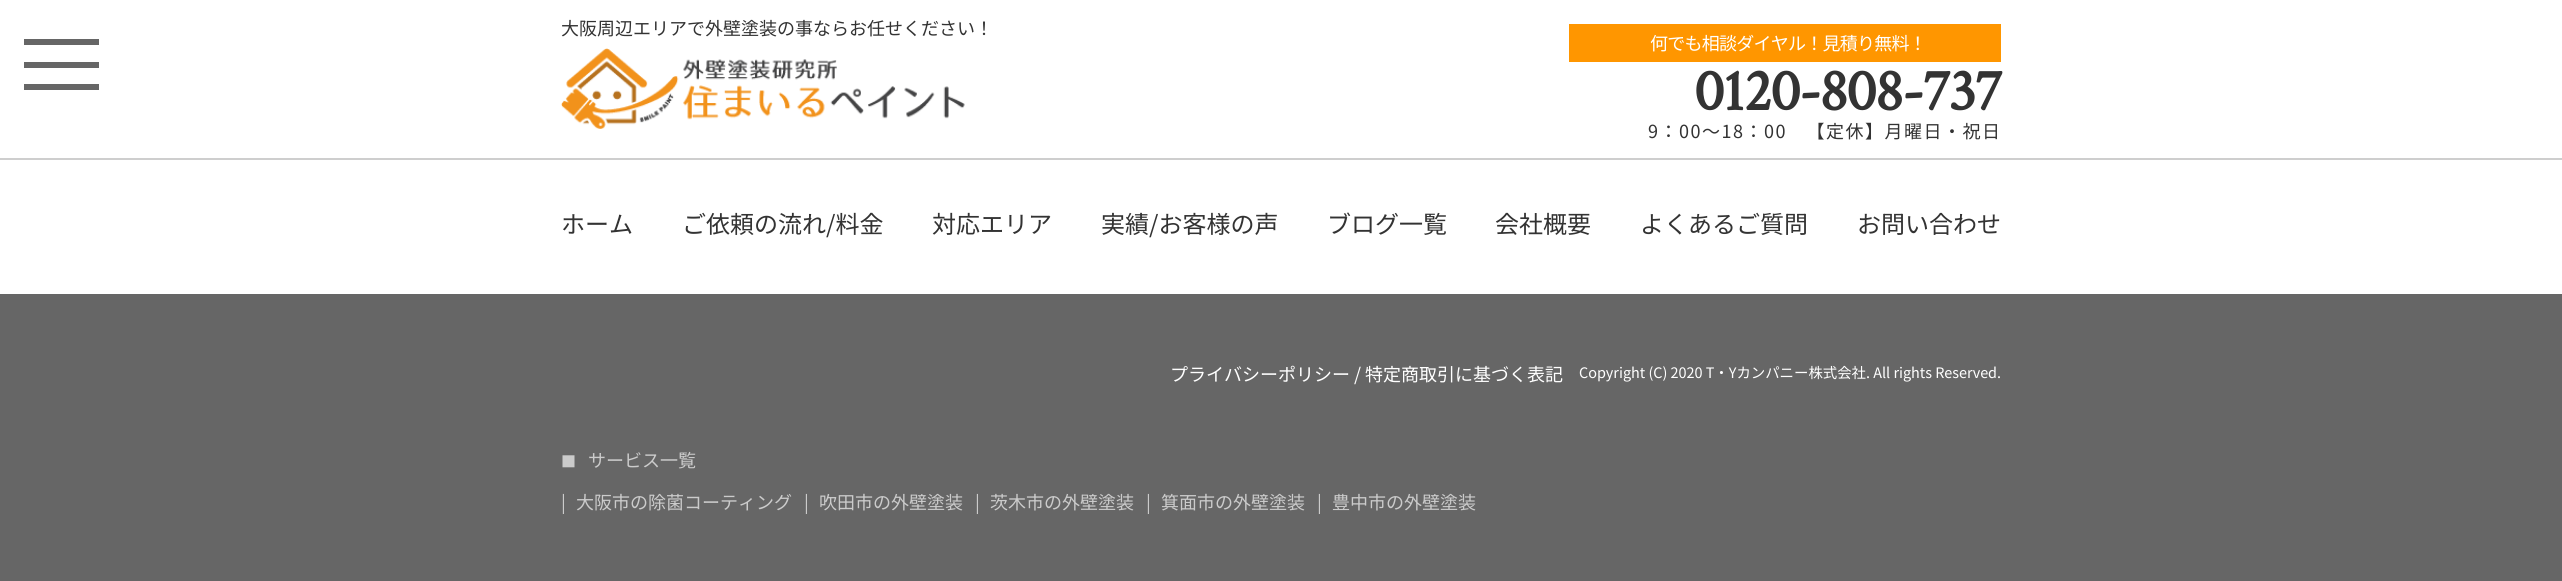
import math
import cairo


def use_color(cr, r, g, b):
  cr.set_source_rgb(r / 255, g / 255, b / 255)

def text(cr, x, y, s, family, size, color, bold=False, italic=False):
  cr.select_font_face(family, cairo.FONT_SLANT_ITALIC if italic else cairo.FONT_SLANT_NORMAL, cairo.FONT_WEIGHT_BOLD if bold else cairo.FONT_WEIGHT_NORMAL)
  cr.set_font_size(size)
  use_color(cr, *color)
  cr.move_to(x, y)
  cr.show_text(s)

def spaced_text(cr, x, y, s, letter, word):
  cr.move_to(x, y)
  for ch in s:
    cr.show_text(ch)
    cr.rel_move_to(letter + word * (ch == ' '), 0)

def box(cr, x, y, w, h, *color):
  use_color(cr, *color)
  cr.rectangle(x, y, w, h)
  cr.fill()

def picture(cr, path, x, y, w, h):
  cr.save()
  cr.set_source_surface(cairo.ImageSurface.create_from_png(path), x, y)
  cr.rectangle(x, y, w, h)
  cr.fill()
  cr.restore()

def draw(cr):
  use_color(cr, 255, 255, 255)
  cr.paint()
  box(cr, 0, 158, 2562, 2, 206, 206, 206)
  box(cr, 24, 39, 75, 6, 102, 102, 102)
  box(cr, 24, 62, 75, 6, 102, 102, 102)
  box(cr, 24, 84, 75, 6, 102, 102, 102)
  picture(cr, "img_01.png", 561, 48, 404, 81)
  box(cr, 1569, 24, 432, 38, 255, 150, 0)
  box(cr, 0, 294, 2562, 287, 102, 102, 102)
  text(cr, 561, 35, "大阪周辺エリアで外壁塗装の事ならお任せください！", "Noto Sans JP", 18, (51, 51, 51))
  use_color(cr, 255, 255, 255)
  spaced_text(cr, 1650, 50, "何でも相談ダイヤル！見積り無料！", -0.75, 0)
  cr.select_font_face("Crimson Text", cairo.FONT_SLANT_NORMAL, cairo.FONT_WEIGHT_BOLD)
  cr.set_font_size(60)
  use_color(cr, 51, 51, 51)
  spaced_text(cr, 1694, 110, "0120-808-737", -1.5, 0)
  cr.select_font_face("Noto Sans JP")
  cr.set_font_size(18)
  spaced_text(cr, 1648, 138, "9：00～18：00　【定休】月曜日・祝日", 1.5, 0)
  text(cr, 561, 233, "ホーム", "Noto Sans JP", 24, (51, 51, 51))
  text(cr, 682, 233, "ご依頼の流れ/料金", "Noto Sans JP", 24, (51, 51, 51))
  text(cr, 932, 233, "対応エリア", "Noto Sans JP", 24, (51, 51, 51))
  text(cr, 1101, 233, "実績/お客様の声", "Noto Sans JP", 24, (51, 51, 51))
  text(cr, 1327, 233, "ブログ一覧", "Noto Sans JP", 24, (51, 51, 51))
  text(cr, 1495, 233, "会社概要", "Noto Sans JP", 24, (51, 51, 51))
  text(cr, 1640, 233, "よくあるご質問", "Noto Sans JP", 24, (51, 51, 51))
  text(cr, 1857, 233, "お問い合わせ", "Noto Sans JP", 24, (51, 51, 51))
  text(cr, 1170, 381, "プライバシーポリシー / 特定商取引に基づく表記", "Noto Sans JP", 18, (255, 255, 255))
  text(cr, 1579, 378, "Copyright (C) 2020 T・Yカンパニー株式会社. All rights Reserved.", "Noto Sans JP", 14.4, (255, 255, 255))
  text(cr, 561, 467, "■", "Noto Sans JP", 15, (203, 203, 203))
  text(cr, 588, 467, "サービス一覧", "Noto Sans JP", 18, (203, 203, 203))
  text(cr, 561, 509, "|", "Noto Sans JP", 18, (203, 203, 203))
  text(cr, 576, 509, "大阪市の除菌コーティング", "Noto Sans JP", 18, (203, 203, 203))
  text(cr, 804, 509, "|", "Noto Sans JP", 18, (203, 203, 203))
  text(cr, 819, 509, "吹田市の外壁塗装", "Noto Sans JP", 18, (203, 203, 203))
  text(cr, 975, 509, "|", "Noto Sans JP", 18, (203, 203, 203))
  text(cr, 990, 509, "茨木市の外壁塗装", "Noto Sans JP", 18, (203, 203, 203))
  text(cr, 1146, 509, "|", "Noto Sans JP", 18, (203, 203, 203))
  text(cr, 1161, 509, "箕面市の外壁塗装", "Noto Sans JP", 18, (203, 203, 203))
  text(cr, 1317, 509, "|", "Noto Sans JP", 18, (203, 203, 203))
  text(cr, 1332, 509, "豊中市の外壁塗装", "Noto Sans JP", 18, (203, 203, 203))


surface = cairo.ImageSurface(cairo.FORMAT_RGB24, 2562, 581)
cr = cairo.Context(surface)
options = cairo.FontOptions()
options.set_hint_metrics(cairo.HINT_METRICS_OFF)
options.set_hint_style(cairo.HINT_STYLE_NONE)
cr.set_font_options(options)
cr.set_miter_limit(4)
draw(cr)
surface.write_to_png("out.png")
